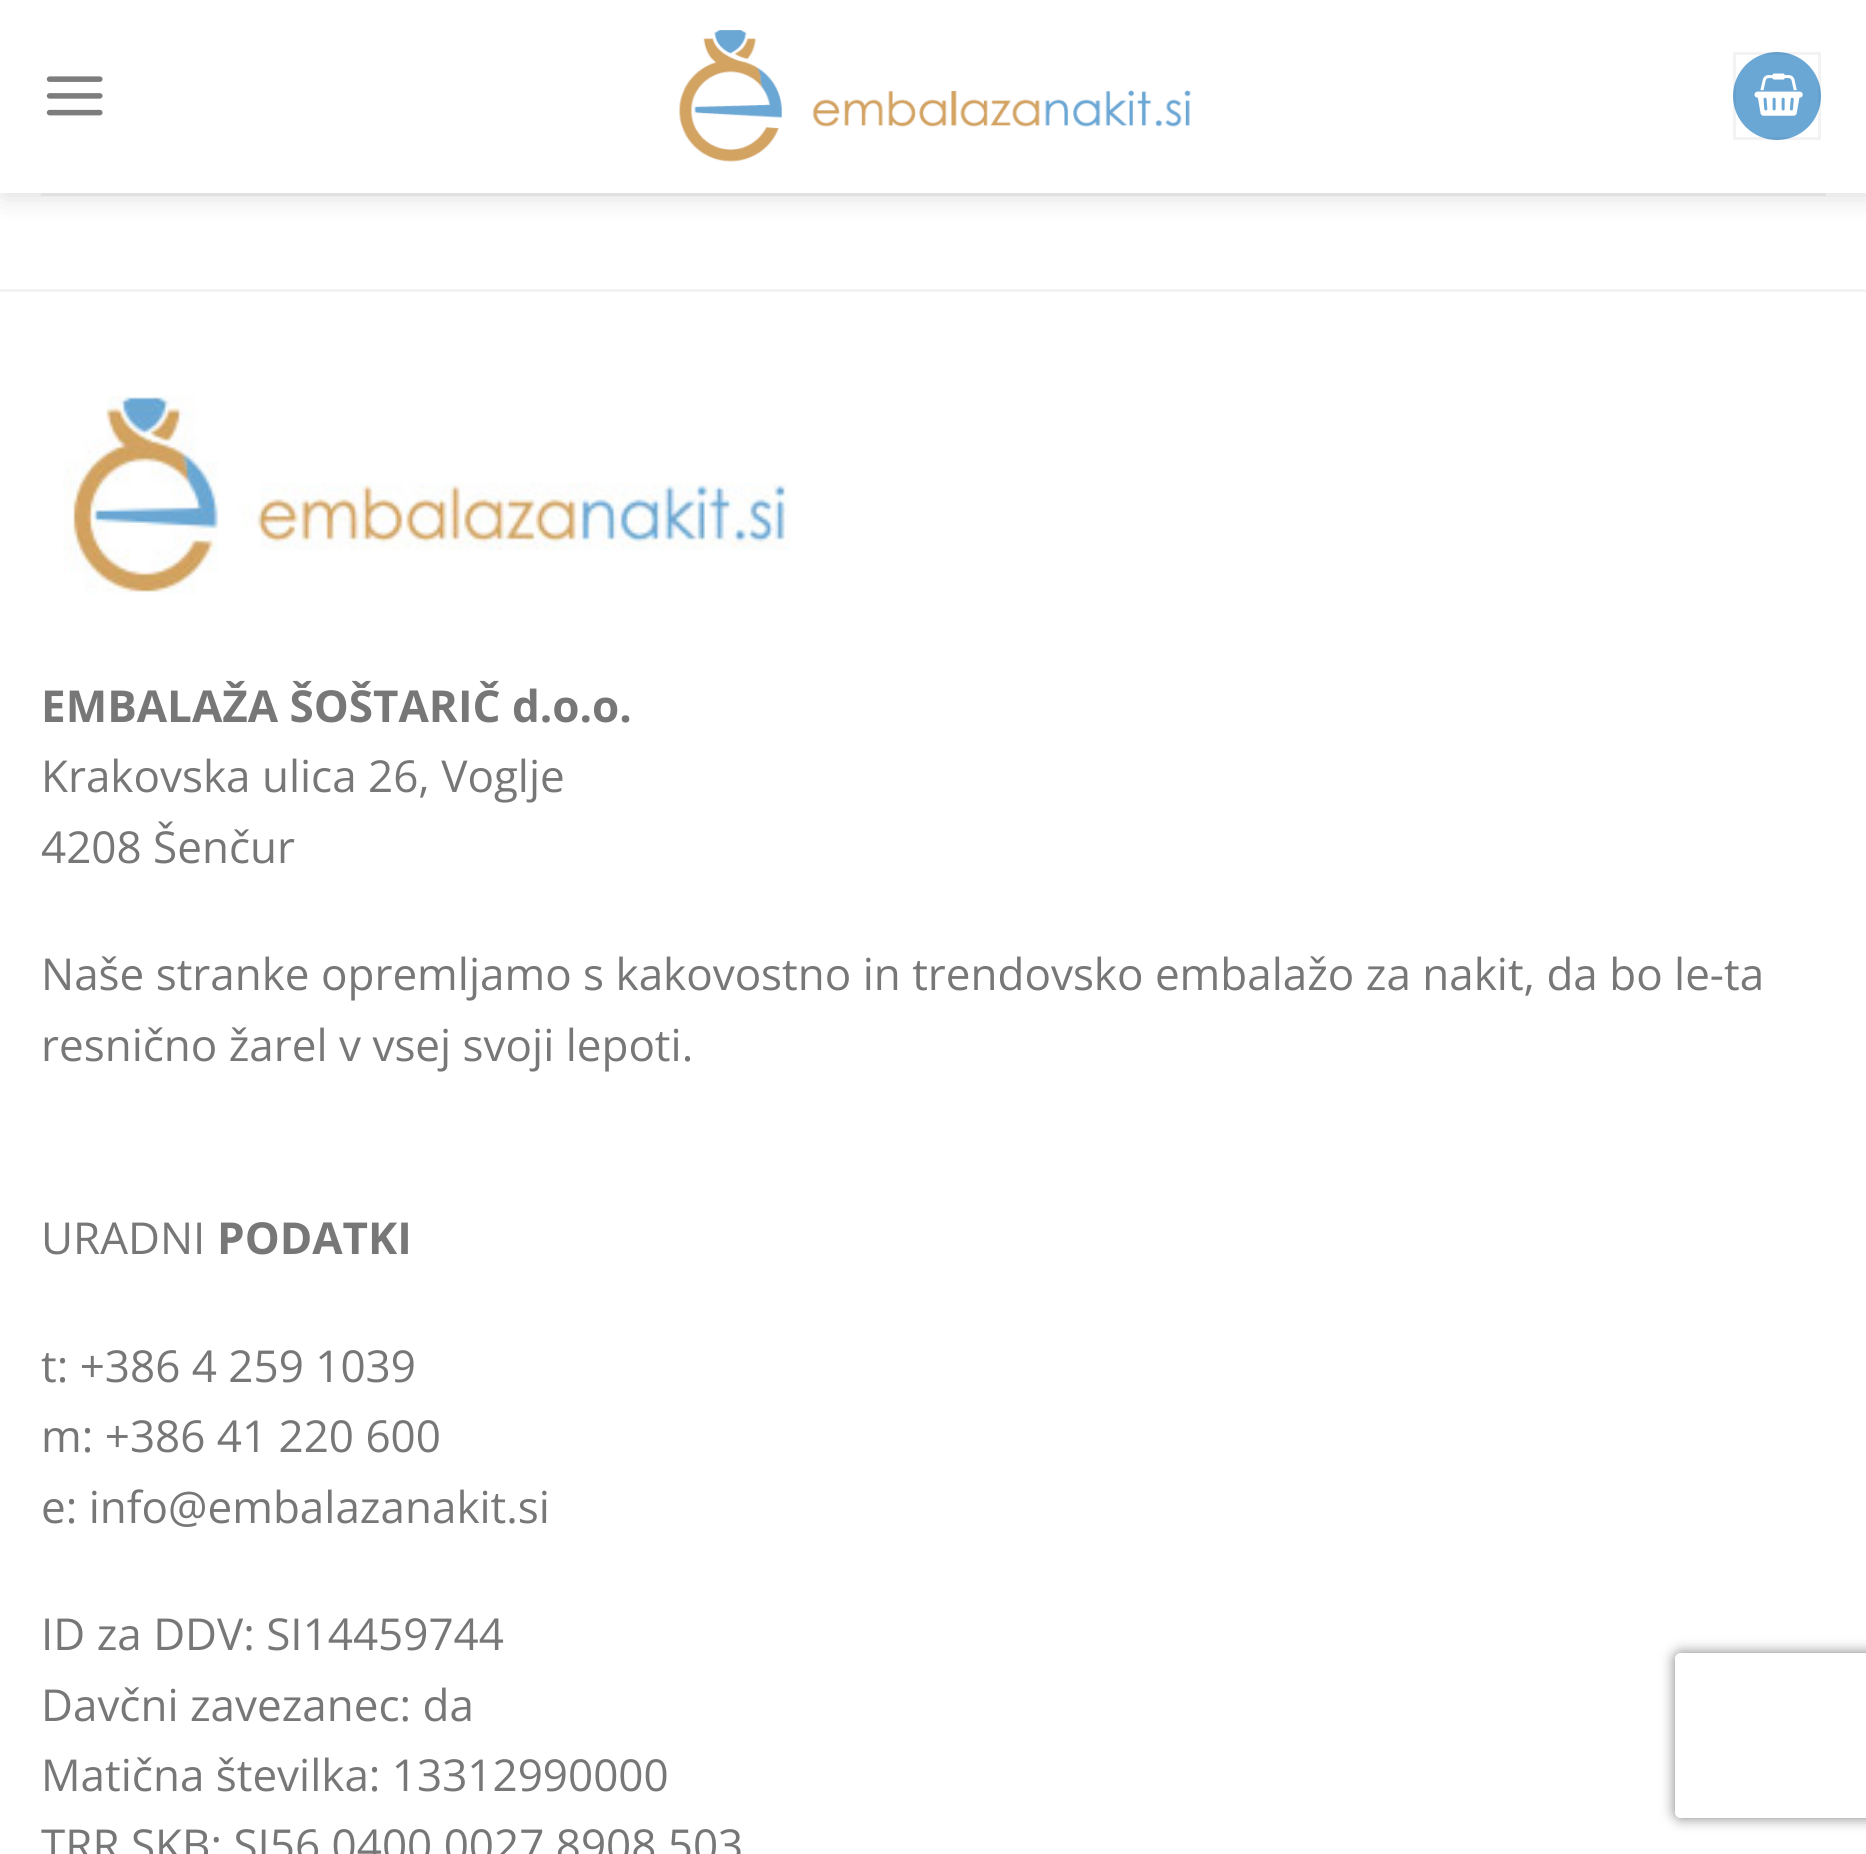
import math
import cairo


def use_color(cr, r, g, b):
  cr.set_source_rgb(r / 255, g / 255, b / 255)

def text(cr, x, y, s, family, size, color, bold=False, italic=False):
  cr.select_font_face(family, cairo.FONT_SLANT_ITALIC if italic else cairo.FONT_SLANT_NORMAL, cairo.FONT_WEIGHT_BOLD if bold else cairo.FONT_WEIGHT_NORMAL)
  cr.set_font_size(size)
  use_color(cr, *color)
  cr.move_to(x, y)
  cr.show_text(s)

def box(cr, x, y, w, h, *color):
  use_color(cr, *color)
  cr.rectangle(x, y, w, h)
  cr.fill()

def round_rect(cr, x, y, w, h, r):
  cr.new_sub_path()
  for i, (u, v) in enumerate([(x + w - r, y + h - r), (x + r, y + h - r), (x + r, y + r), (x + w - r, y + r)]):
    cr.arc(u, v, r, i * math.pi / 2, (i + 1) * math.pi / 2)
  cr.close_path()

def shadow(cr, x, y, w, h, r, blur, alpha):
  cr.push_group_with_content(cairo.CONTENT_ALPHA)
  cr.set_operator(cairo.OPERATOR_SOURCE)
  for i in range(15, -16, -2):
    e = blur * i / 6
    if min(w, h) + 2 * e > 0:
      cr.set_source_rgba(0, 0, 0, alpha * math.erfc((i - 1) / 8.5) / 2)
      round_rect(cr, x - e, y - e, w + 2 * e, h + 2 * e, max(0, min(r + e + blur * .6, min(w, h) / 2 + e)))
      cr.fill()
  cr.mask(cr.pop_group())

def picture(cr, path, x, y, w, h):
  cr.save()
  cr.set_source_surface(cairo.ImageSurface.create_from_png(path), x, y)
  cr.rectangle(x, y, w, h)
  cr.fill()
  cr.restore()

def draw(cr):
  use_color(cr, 255, 255, 255)
  cr.paint()
  use_color(cr, 0, 0, 0)
  shadow(cr, 3, 3, 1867, 192, 0, 14, 0.15)
  box(cr, 0, 0, 1866, 193, 255, 255, 255)
  picture(cr, "img_01.png", 46, 76, 57, 40)
  picture(cr, "img_02.png", 679, 30, 512, 132)
  use_color(cr, 106, 167, 213)
  cr.arc(1777, 96, 44, 0, 2 * math.pi)
  cr.fill()
  cr.rectangle(1734.5, 53.5, 85, 85)
  cr.set_source_rgba(0, 0, 0, 0.05)
  cr.set_line_width(3)
  cr.stroke()
  picture(cr, "img_03.png", 1754, 73, 49, 43)
  box(cr, 41, 193, 1785, 3, 224, 224, 224)
  box(cr, 0, 289, 1866, 3, 242, 242, 242)
  picture(cr, "img_04.png", 63, 395, 727, 199)
  cr.save()
  cr.set_fill_rule(cairo.FILL_RULE_EVEN_ODD)
  cr.new_path()
  cr.move_to(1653, 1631)
  cr.line_to(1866, 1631)
  cr.line_to(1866, 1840)
  cr.line_to(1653, 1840)
  cr.close_path()
  cr.move_to(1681, 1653)
  cr.line_to(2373, 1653)
  cr.curve_to(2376.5, 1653, 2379, 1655.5, 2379, 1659)
  cr.line_to(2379, 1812)
  cr.curve_to(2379, 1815.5, 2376.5, 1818, 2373, 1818)
  cr.line_to(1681, 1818)
  cr.curve_to(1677.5, 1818, 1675, 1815.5, 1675, 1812)
  cr.line_to(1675, 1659)
  cr.curve_to(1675, 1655.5, 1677.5, 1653, 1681, 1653)
  cr.close_path()
  cr.clip()
  use_color(cr, 128, 128, 128)
  shadow(cr, 1675, 1653, 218, 165, 6, 7, 1)
  cr.restore()
  text(cr, 41, 722, "EMBALAŽA ŠOŠTARIČ d.o.o.", "Open Sans", 44, (119, 119, 119), bold=True)
  text(cr, 41, 792, "Krakovska ulica 26, Voglje", "Open Sans", 44, (119, 119, 119))
  text(cr, 41, 863, "4208 Šenčur", "Open Sans", 44, (119, 119, 119))
  text(cr, 41, 990, "Naše stranke opremljamo s kakovostno in trendovsko embalažo za nakit, da bo le-ta", "Open Sans", 44, (119, 119, 119))
  text(cr, 41, 1061, "resnično žarel v vsej svoji lepoti.", "Open Sans", 44, (119, 119, 119))
  text(cr, 41, 1254, "URADNI", "Open Sans", 44, (119, 119, 119))
  text(cr, 217, 1254, "PODATKI", "Open Sans", 44, (119, 119, 119), bold=True)
  text(cr, 41, 1382, "t: +386 4 259 1039", "Open Sans", 44, (119, 119, 119))
  text(cr, 41, 1452, "m: +386 41 220 600", "Open Sans", 44, (119, 119, 119))
  text(cr, 41, 1523, "e: info@embalazanakit.si", "Open Sans", 44, (119, 119, 119))
  text(cr, 41, 1650, "ID za DDV: SI14459744", "Open Sans", 44, (119, 119, 119))
  text(cr, 41, 1721, "Davčni zavezanec: da", "Open Sans", 44, (119, 119, 119))
  text(cr, 41, 1791, "Matična številka: 13312990000", "Open Sans", 44, (119, 119, 119))
  text(cr, 41, 1861, "TRR SKB: SI56 0400 0027 8908 503", "Open Sans", 44, (119, 119, 119))


surface = cairo.ImageSurface(cairo.FORMAT_RGB24, 1866, 1854)
cr = cairo.Context(surface)
options = cairo.FontOptions()
options.set_hint_metrics(cairo.HINT_METRICS_OFF)
options.set_hint_style(cairo.HINT_STYLE_NONE)
cr.set_font_options(options)
cr.set_miter_limit(4)
draw(cr)
surface.write_to_png("out.png")
